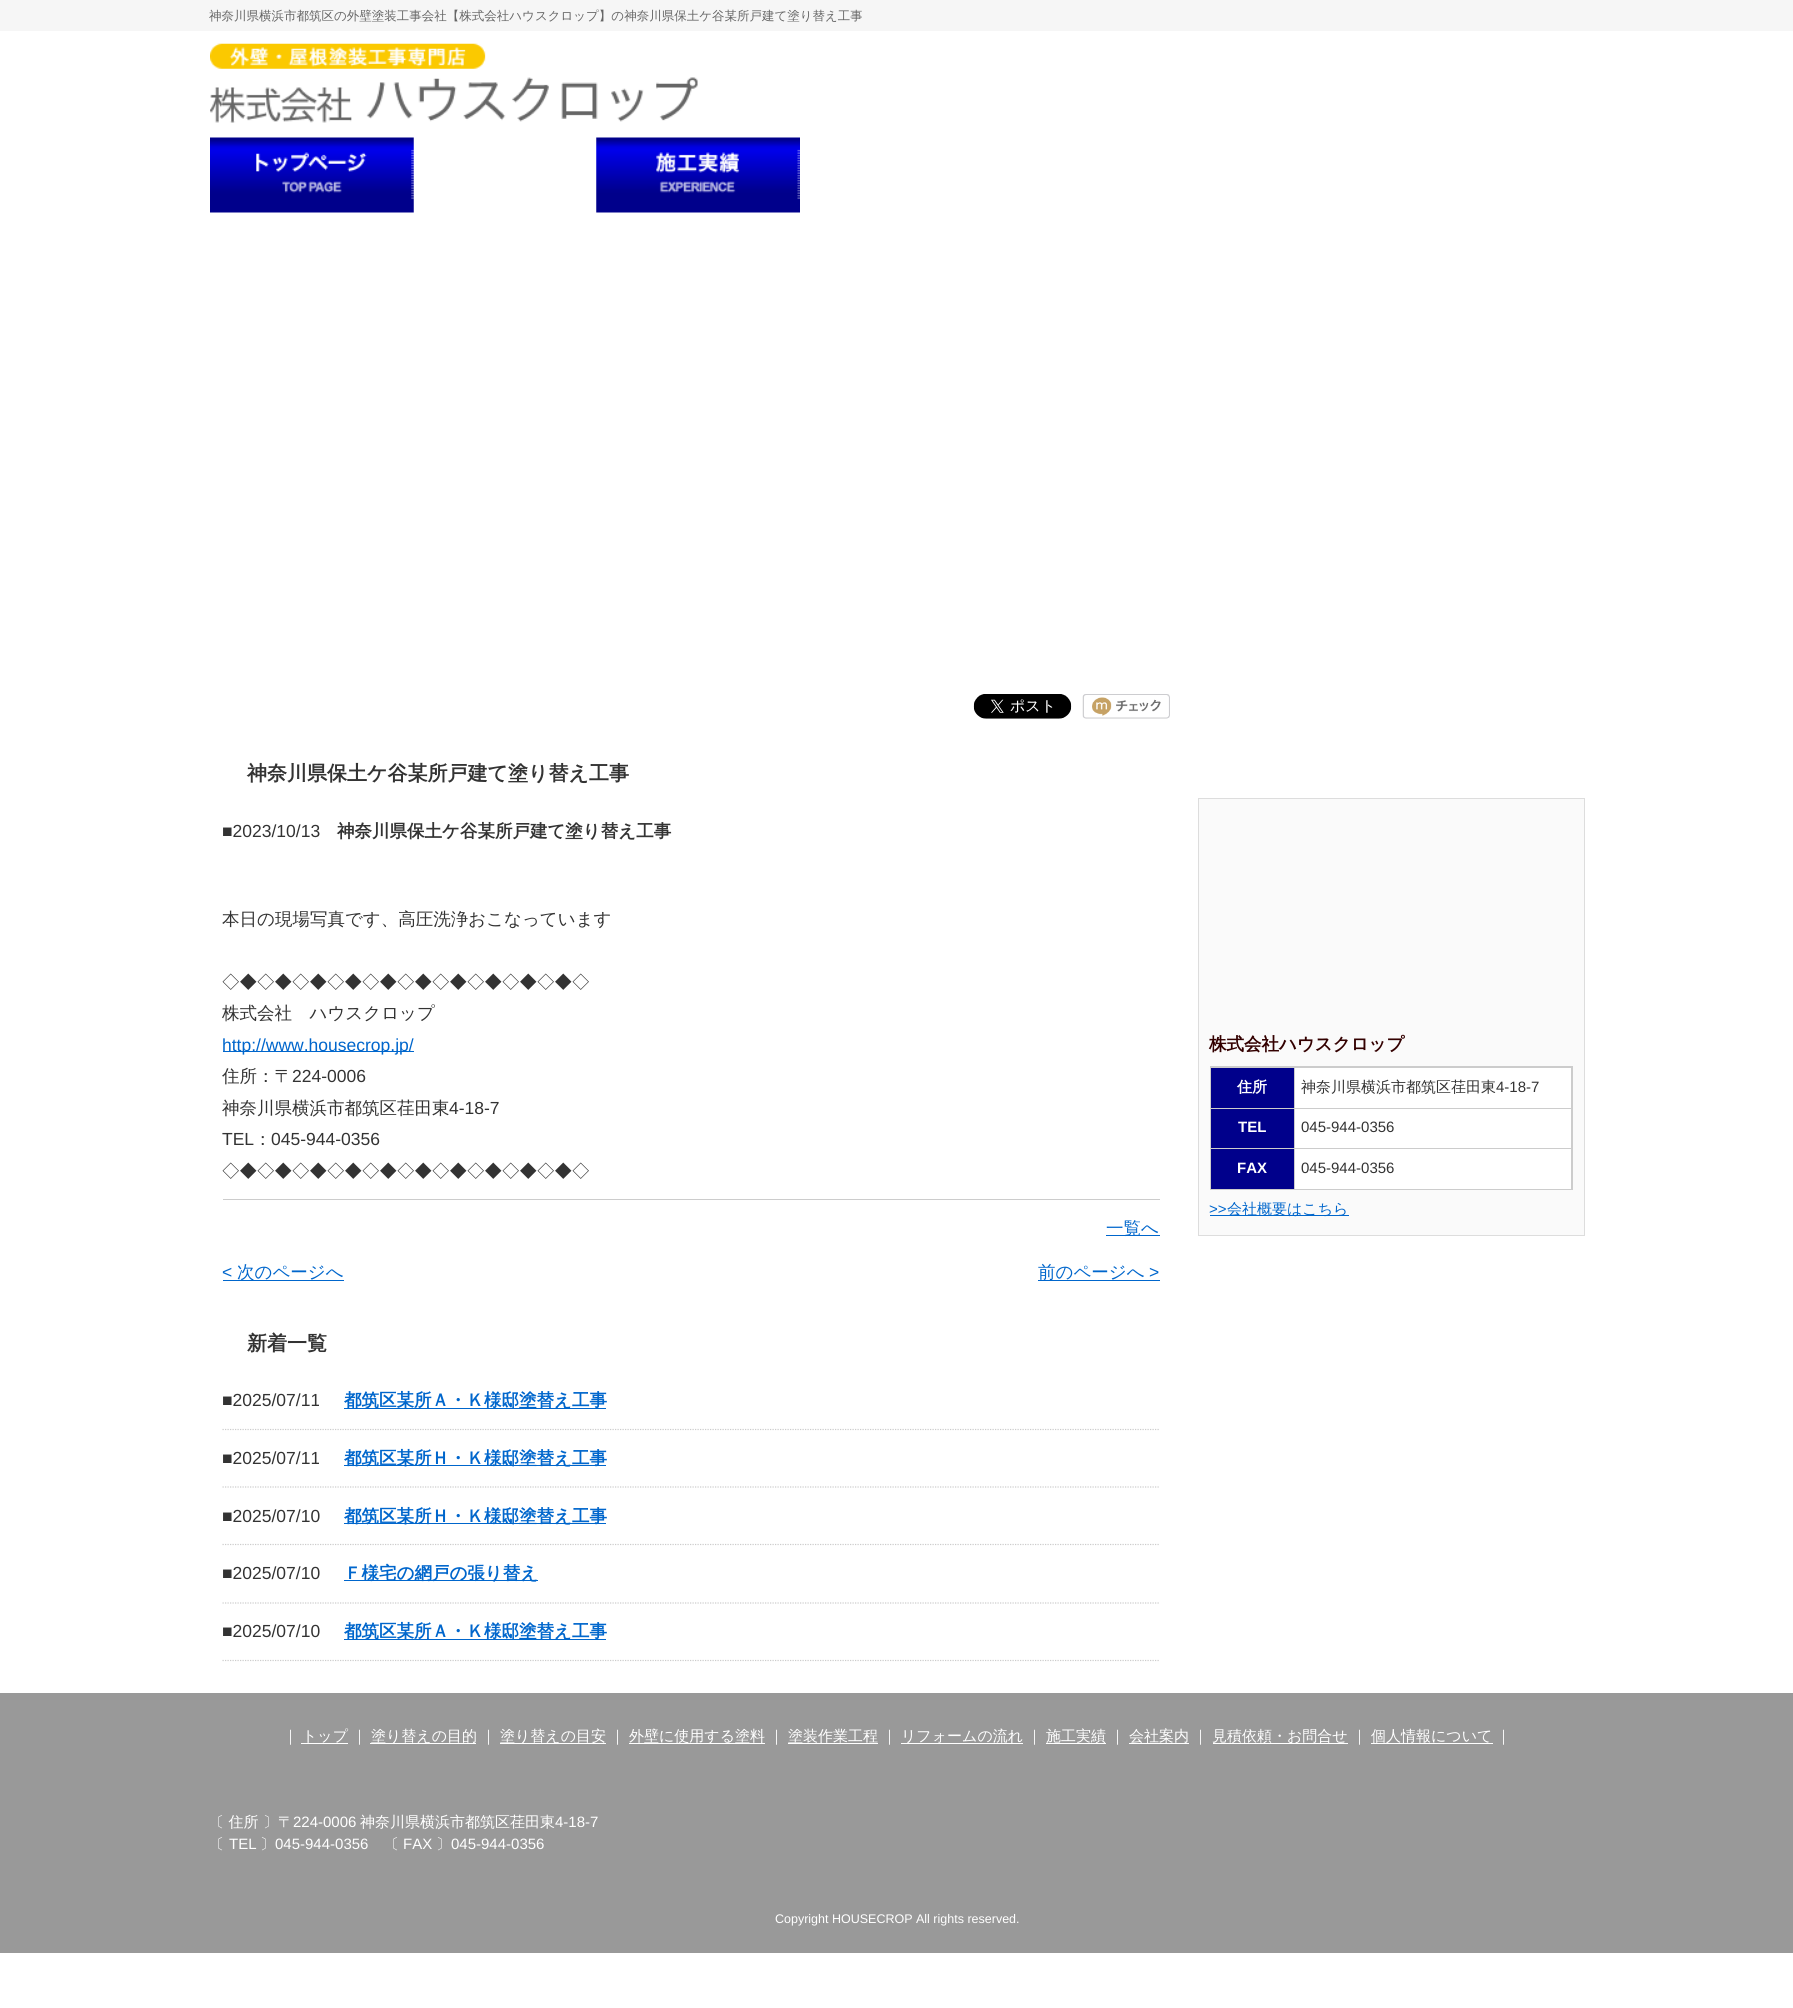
import math
import cairo


def use_color(cr, r, g, b):
  cr.set_source_rgb(r / 255, g / 255, b / 255)

def text(cr, x, y, s, family, size, color, bold=False, italic=False):
  cr.select_font_face(family, cairo.FONT_SLANT_ITALIC if italic else cairo.FONT_SLANT_NORMAL, cairo.FONT_WEIGHT_BOLD if bold else cairo.FONT_WEIGHT_NORMAL)
  cr.set_font_size(size)
  use_color(cr, *color)
  cr.move_to(x, y)
  cr.show_text(s)

def box(cr, x, y, w, h, *color):
  use_color(cr, *color)
  cr.rectangle(x, y, w, h)
  cr.fill()

def picture(cr, path, x, y, w, h):
  cr.save()
  cr.set_source_surface(cairo.ImageSurface.create_from_png(path), x, y)
  cr.rectangle(x, y, w, h)
  cr.fill()
  cr.restore()

def draw(cr):
  use_color(cr, 255, 255, 255)
  cr.paint()
  box(cr, 0, 0, 1793, 31, 246, 246, 246)
  picture(cr, "img_01.png", 210, 43, 488, 80)
  picture(cr, "img_02.png", 210, 137, 204, 76)
  picture(cr, "img_03.png", 596, 137, 204, 76)
  picture(cr, "img_04.png", 973, 694, 99, 25)
  picture(cr, "img_05.png", 1082, 694, 88, 25)
  box(cr, 223, 1051, 191, 1, 0, 102, 204)
  box(cr, 223, 1199, 937, 1, 204, 204, 204)
  box(cr, 1106, 1235, 54, 1, 0, 102, 204)
  box(cr, 223, 1280, 121, 1, 0, 102, 204)
  box(cr, 1038, 1280, 122, 1, 0, 102, 204)
  cr.new_path()
  cr.move_to(222.5, 1429.5)
  cr.line_to(1160, 1429.5)
  use_color(cr, 204, 204, 204)
  cr.set_line_width(1.2)
  cr.set_dash([1.25, 1.25])
  cr.stroke()
  box(cr, 344, 1408, 262, 1, 0, 102, 204)
  cr.new_path()
  cr.move_to(222.5, 1487)
  cr.line_to(1160, 1487)
  use_color(cr, 204, 204, 204)
  cr.stroke()
  box(cr, 344, 1465, 262, 1, 0, 102, 204)
  cr.new_path()
  cr.move_to(222.5, 1544.5)
  cr.line_to(1160, 1544.5)
  use_color(cr, 204, 204, 204)
  cr.stroke()
  box(cr, 344, 1523, 262, 1, 0, 102, 204)
  cr.new_path()
  cr.move_to(222.5, 1603)
  cr.line_to(1160, 1603)
  use_color(cr, 204, 204, 204)
  cr.stroke()
  box(cr, 344, 1580, 194, 1, 0, 102, 204)
  cr.new_path()
  cr.move_to(222.5, 1660.5)
  cr.line_to(1160, 1660.5)
  use_color(cr, 204, 204, 204)
  cr.stroke()
  box(cr, 344, 1639, 262, 1, 0, 102, 204)
  use_color(cr, 250, 250, 250)
  cr.rectangle(1198.5, 798.5, 386, 437)
  cr.fill_preserve()
  use_color(cr, 221, 221, 221)
  cr.set_line_width(1)
  cr.set_dash([])
  cr.stroke()
  box(cr, 1210, 1066, 363, 124, 204, 204, 204)
  box(cr, 1211, 1068, 83, 40, 0, 0, 139)
  box(cr, 1295, 1068, 276, 40, 255, 255, 255)
  box(cr, 1211, 1109, 83, 39, 0, 0, 139)
  box(cr, 1295, 1109, 276, 39, 255, 255, 255)
  box(cr, 1211, 1149, 83, 40, 0, 0, 139)
  box(cr, 1295, 1149, 276, 40, 255, 255, 255)
  box(cr, 1210, 1215, 139, 1, 0, 102, 204)
  box(cr, 0, 1693, 1793, 260, 153, 153, 153)
  box(cr, 301, 1743, 47, 1, 255, 255, 255)
  box(cr, 370, 1743, 106, 1, 255, 255, 255)
  box(cr, 500, 1743, 106, 1, 255, 255, 255)
  box(cr, 629, 1743, 136, 1, 255, 255, 255)
  box(cr, 788, 1743, 90, 1, 255, 255, 255)
  box(cr, 901, 1743, 122, 1, 255, 255, 255)
  box(cr, 1046, 1743, 60, 1, 255, 255, 255)
  box(cr, 1129, 1743, 60, 1, 255, 255, 255)
  box(cr, 1213, 1743, 135, 1, 255, 255, 255)
  box(cr, 1371, 1743, 122, 1, 255, 255, 255)
  text(cr, 209, 20, "神奈川県横浜市都筑区の外壁塗装工事会社【株式会社ハウスクロップ】の神奈川県保土ケ谷某所戸建て塗り替え工事", "WenQuanYi Zen Hei Medium", 12.5, (102, 102, 102))
  text(cr, 247, 780, "神奈川県保土ケ谷某所戸建て塗り替え工事", "WenQuanYi Zen Hei", 20, (51, 51, 51), bold=True)
  text(cr, 222, 837, "■2023/10/13", "Liberation Sans", 17.5, (51, 51, 51))
  text(cr, 337, 837, "神奈川県保土ケ谷某所戸建て塗り替え工事", "WenQuanYi Zen Hei", 17.5, (51, 51, 51), bold=True)
  text(cr, 222, 925, "本日の現場写真です、高圧洗浄おこなっています", "WenQuanYi Zen Hei Medium", 17.5, (51, 51, 51))
  text(cr, 222, 988, "◇◆◇◆◇◆◇◆◇◆◇◆◇◆◇◆◇◆◇◆◇", "WenQuanYi Zen Hei Medium", 17.5, (51, 51, 51))
  text(cr, 222, 1019, "株式会社　ハウスクロップ", "WenQuanYi Zen Hei Medium", 17.5, (51, 51, 51))
  text(cr, 222, 1051, "http://www.housecrop.jp/", "Liberation Sans", 17.5, (0, 102, 204))
  text(cr, 222, 1082, "住所：〒", "WenQuanYi Zen Hei Medium", 17.5, (51, 51, 51))
  text(cr, 292, 1082, "224-0006", "Liberation Sans", 17.5, (51, 51, 51))
  text(cr, 222, 1114, "神奈川県横浜市都筑区荏田東", "WenQuanYi Zen Hei Medium", 17.5, (51, 51, 51))
  text(cr, 449, 1114, "4-18-7", "Liberation Sans", 17.5, (51, 51, 51))
  text(cr, 222, 1145, "TEL", "Liberation Sans", 17.5, (51, 51, 51))
  text(cr, 254, 1145, "：", "WenQuanYi Zen Hei Medium", 17.5, (51, 51, 51))
  text(cr, 271, 1145, "045-944-0356", "Liberation Sans", 17.5, (51, 51, 51))
  text(cr, 222, 1177, "◇◆◇◆◇◆◇◆◇◆◇◆◇◆◇◆◇◆◇◆◇", "WenQuanYi Zen Hei Medium", 17.5, (51, 51, 51))
  text(cr, 1106, 1234, "一覧へ", "WenQuanYi Zen Hei Medium", 17.5, (0, 102, 204))
  text(cr, 222, 1278, "<", "Liberation Sans", 17.5, (0, 102, 204))
  text(cr, 237, 1278, "次のページへ", "WenQuanYi Zen Hei Medium", 17.5, (0, 102, 204))
  text(cr, 1038, 1278, "前のページへ", "WenQuanYi Zen Hei Medium", 17.5, (0, 102, 204))
  text(cr, 1149, 1278, ">", "Liberation Sans", 17.5, (0, 102, 204))
  text(cr, 247, 1350, "新着一覧", "WenQuanYi Zen Hei", 20, (51, 51, 51), bold=True)
  text(cr, 222, 1406, "■2025/07/11", "Liberation Sans", 17.5, (51, 51, 51))
  text(cr, 344, 1406, "都筑区某所Ａ・Ｋ様邸塗替え工事", "WenQuanYi Zen Hei", 17.5, (0, 102, 204), bold=True)
  text(cr, 222, 1464, "■2025/07/11", "Liberation Sans", 17.5, (51, 51, 51))
  text(cr, 344, 1464, "都筑区某所Ｈ・Ｋ様邸塗替え工事", "WenQuanYi Zen Hei", 17.5, (0, 102, 204), bold=True)
  text(cr, 222, 1522, "■2025/07/10", "Liberation Sans", 17.5, (51, 51, 51))
  text(cr, 344, 1522, "都筑区某所Ｈ・Ｋ様邸塗替え工事", "WenQuanYi Zen Hei", 17.5, (0, 102, 204), bold=True)
  text(cr, 222, 1579, "■2025/07/10", "Liberation Sans", 17.5, (51, 51, 51))
  text(cr, 344, 1579, "Ｆ様宅の網戸の張り替え", "WenQuanYi Zen Hei", 17.5, (0, 102, 204), bold=True)
  text(cr, 222, 1637, "■2025/07/10", "Liberation Sans", 17.5, (51, 51, 51))
  text(cr, 344, 1637, "都筑区某所Ａ・Ｋ様邸塗替え工事", "WenQuanYi Zen Hei", 17.5, (0, 102, 204), bold=True)
  text(cr, 1209, 1050, "株式会社ハウスクロップ", "WenQuanYi Zen Hei", 17.5, (51, 0, 0), bold=True)
  text(cr, 1237, 1092, "住所", "WenQuanYi Zen Hei", 15, (255, 255, 255), bold=True)
  text(cr, 1301, 1092, "神奈川県横浜市都筑区荏田東", "WenQuanYi Zen Hei Medium", 15, (51, 51, 51))
  text(cr, 1496, 1092, "4-18-7", "Liberation Sans", 15, (51, 51, 51))
  text(cr, 1238, 1132, "TEL", "Liberation Sans", 15, (255, 255, 255), bold=True)
  text(cr, 1301, 1132, "045-944-0356", "Liberation Sans", 15, (51, 51, 51))
  text(cr, 1237, 1173, "FAX", "Liberation Sans", 15, (255, 255, 255), bold=True)
  text(cr, 1301, 1173, "045-944-0356", "Liberation Sans", 15, (51, 51, 51))
  text(cr, 1209, 1214, ">>", "Liberation Sans", 15, (0, 102, 204))
  text(cr, 1227, 1214, "会社概要はこちら", "WenQuanYi Zen Hei Medium", 15, (0, 102, 204))
  text(cr, 283, 1741, "｜", "WenQuanYi Zen Hei Medium", 15, (255, 255, 255))
  text(cr, 302, 1741, "トップ", "WenQuanYi Zen Hei Medium", 15, (255, 255, 255))
  text(cr, 352, 1741, "｜", "WenQuanYi Zen Hei Medium", 15, (255, 255, 255))
  text(cr, 371, 1741, "塗り替えの目的", "WenQuanYi Zen Hei Medium", 15, (255, 255, 255))
  text(cr, 481, 1741, "｜", "WenQuanYi Zen Hei Medium", 15, (255, 255, 255))
  text(cr, 500, 1741, "塗り替えの目安", "WenQuanYi Zen Hei Medium", 15, (255, 255, 255))
  text(cr, 610, 1741, "｜", "WenQuanYi Zen Hei Medium", 15, (255, 255, 255))
  text(cr, 629, 1741, "外壁に使用する塗料", "WenQuanYi Zen Hei Medium", 15, (255, 255, 255))
  text(cr, 769, 1741, "｜", "WenQuanYi Zen Hei Medium", 15, (255, 255, 255))
  text(cr, 788, 1741, "塗装作業工程", "WenQuanYi Zen Hei Medium", 15, (255, 255, 255))
  text(cr, 882, 1741, "｜", "WenQuanYi Zen Hei Medium", 15, (255, 255, 255))
  text(cr, 901, 1741, "リフォームの流れ", "WenQuanYi Zen Hei Medium", 15, (255, 255, 255))
  text(cr, 1027, 1741, "｜", "WenQuanYi Zen Hei Medium", 15, (255, 255, 255))
  text(cr, 1046, 1741, "施工実績", "WenQuanYi Zen Hei Medium", 15, (255, 255, 255))
  text(cr, 1110, 1741, "｜", "WenQuanYi Zen Hei Medium", 15, (255, 255, 255))
  text(cr, 1129, 1741, "会社案内", "WenQuanYi Zen Hei Medium", 15, (255, 255, 255))
  text(cr, 1193, 1741, "｜", "WenQuanYi Zen Hei Medium", 15, (255, 255, 255))
  text(cr, 1212, 1741, "見積依頼・お問合せ", "WenQuanYi Zen Hei Medium", 15, (255, 255, 255))
  text(cr, 1352, 1741, "｜", "WenQuanYi Zen Hei Medium", 15, (255, 255, 255))
  text(cr, 1371, 1741, "個人情報について", "WenQuanYi Zen Hei Medium", 15, (255, 255, 255))
  text(cr, 1496, 1741, "｜", "WenQuanYi Zen Hei Medium", 15, (255, 255, 255))
  text(cr, 209, 1827, "〔 住所 〕〒", "WenQuanYi Zen Hei Medium", 15, (255, 255, 255))
  text(cr, 293, 1827, "224-0006", "Liberation Sans", 15, (255, 255, 255))
  text(cr, 360, 1827, "神奈川県横浜市都筑区荏田東", "WenQuanYi Zen Hei Medium", 15, (255, 255, 255))
  text(cr, 555, 1827, "4-18-7", "Liberation Sans", 15, (255, 255, 255))
  text(cr, 209, 1849, "〔", "WenQuanYi Zen Hei Medium", 15, (255, 255, 255))
  text(cr, 229, 1849, "TEL", "Liberation Sans", 15, (255, 255, 255))
  text(cr, 260, 1849, "〕", "WenQuanYi Zen Hei Medium", 15, (255, 255, 255))
  text(cr, 275, 1849, "045-944-0356", "Liberation Sans", 15, (255, 255, 255))
  text(cr, 384, 1849, "〔", "WenQuanYi Zen Hei Medium", 15, (255, 255, 255))
  text(cr, 403, 1849, "FAX", "Liberation Sans", 15, (255, 255, 255))
  text(cr, 436, 1849, "〕", "WenQuanYi Zen Hei Medium", 15, (255, 255, 255))
  text(cr, 451, 1849, "045-944-0356", "Liberation Sans", 15, (255, 255, 255))
  text(cr, 775, 1923, "Copyright HOUSECROP All rights reserved.", "Liberation Sans", 12.5, (255, 255, 255))


surface = cairo.ImageSurface(cairo.FORMAT_RGB24, 1793, 2008)
cr = cairo.Context(surface)
options = cairo.FontOptions()
options.set_hint_metrics(cairo.HINT_METRICS_OFF)
options.set_hint_style(cairo.HINT_STYLE_NONE)
cr.set_font_options(options)
cr.set_miter_limit(4)
draw(cr)
surface.write_to_png("out.png")
